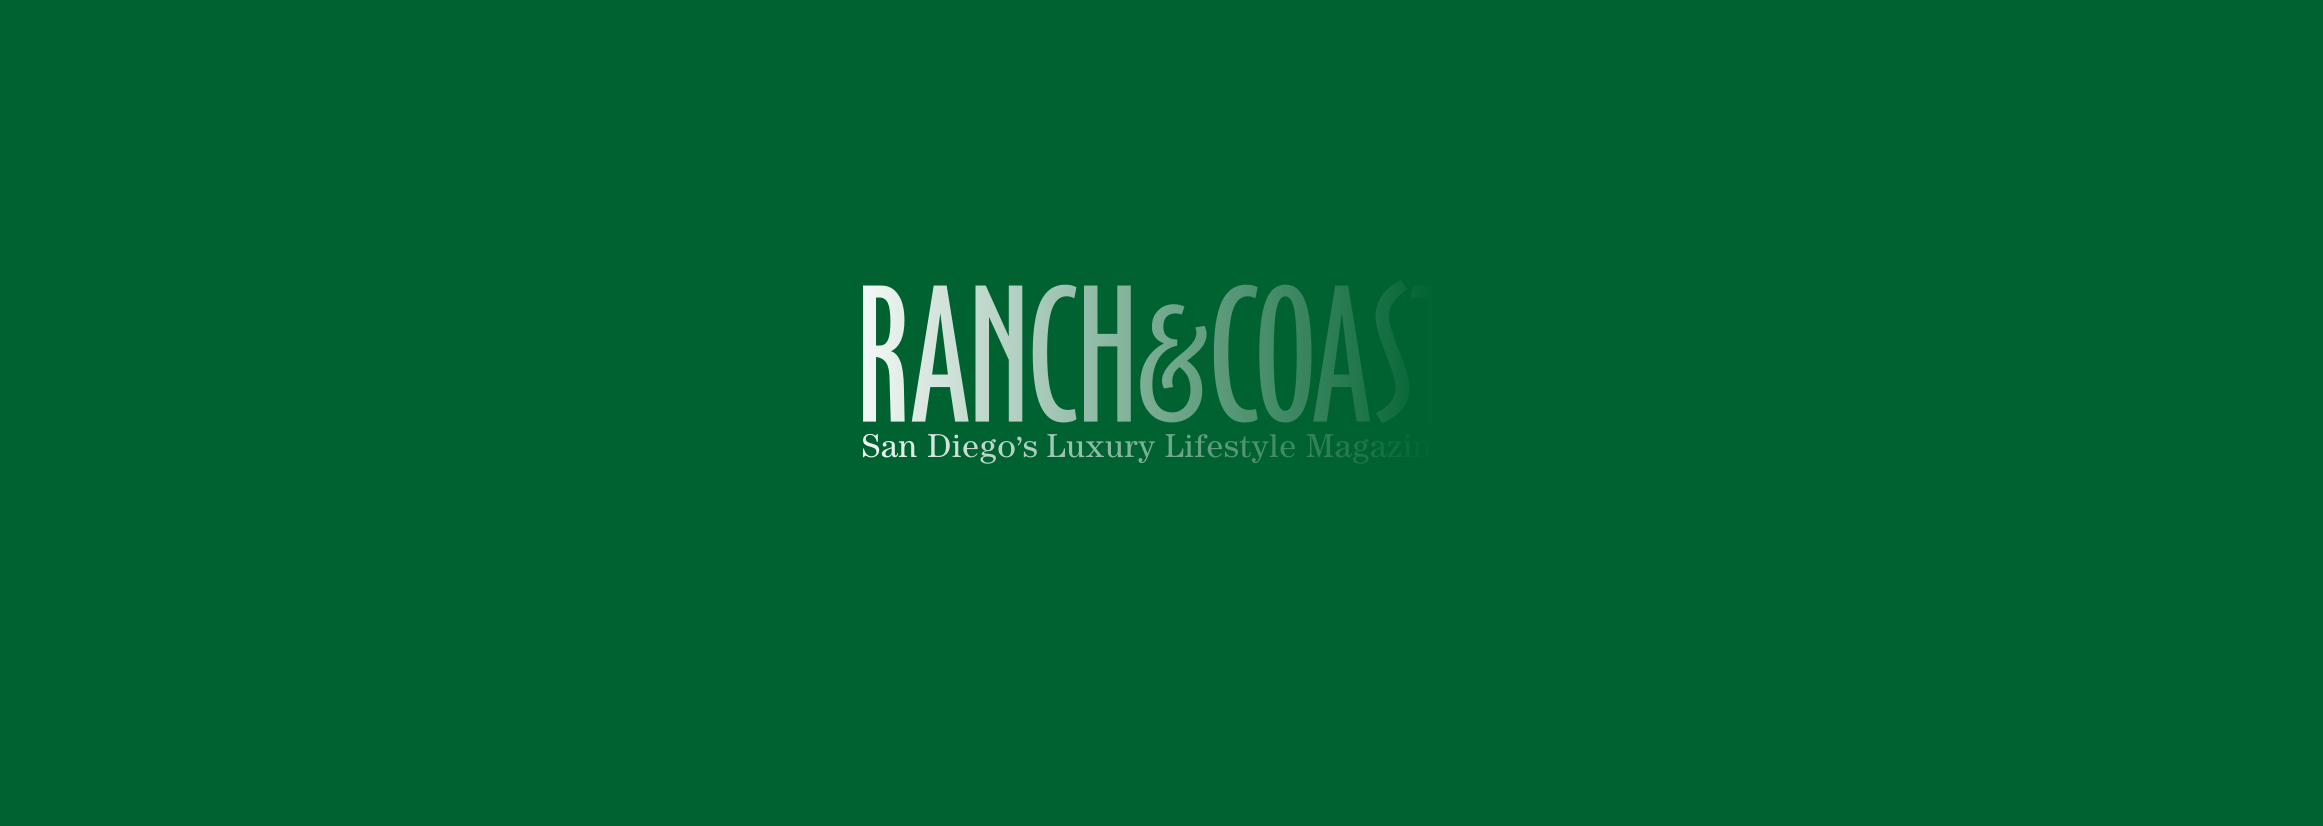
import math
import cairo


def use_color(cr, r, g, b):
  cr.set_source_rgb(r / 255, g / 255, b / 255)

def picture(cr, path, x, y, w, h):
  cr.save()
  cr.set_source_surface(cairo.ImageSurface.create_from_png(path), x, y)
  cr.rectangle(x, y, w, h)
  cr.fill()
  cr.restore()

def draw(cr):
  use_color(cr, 0, 98, 49)
  cr.paint()
  picture(cr, "img_01.png", 863, 280, 569, 144)
  gradient = cairo.LinearGradient(2036, 356, 836, 356)
  gradient.add_color_stop_rgba(0, 0, 0.384, 0.192, 1)
  gradient.add_color_stop_rgba(0.5, 0, 0.384, 0.192, 1)
  gradient.add_color_stop_rgba(1, 0, 0.384, 0.192, 0)
  cr.set_source(gradient)
  cr.rectangle(863, 280, 569, 144)
  cr.fill()
  picture(cr, "img_02.png", 863, 434, 569, 30)
  gradient = cairo.LinearGradient(2036, 453, 836, 453)
  gradient.add_color_stop_rgba(0, 0, 0.384, 0.192, 1)
  gradient.add_color_stop_rgba(0.5, 0, 0.384, 0.192, 1)
  gradient.add_color_stop_rgba(1, 0, 0.384, 0.192, 0)
  cr.set_source(gradient)
  cr.rectangle(863, 434, 569, 30)
  cr.fill()


surface = cairo.ImageSurface(cairo.FORMAT_RGB24, 2323, 826)
cr = cairo.Context(surface)
options = cairo.FontOptions()
options.set_hint_metrics(cairo.HINT_METRICS_OFF)
options.set_hint_style(cairo.HINT_STYLE_NONE)
cr.set_font_options(options)
cr.set_miter_limit(4)
draw(cr)
surface.write_to_png("out.png")
